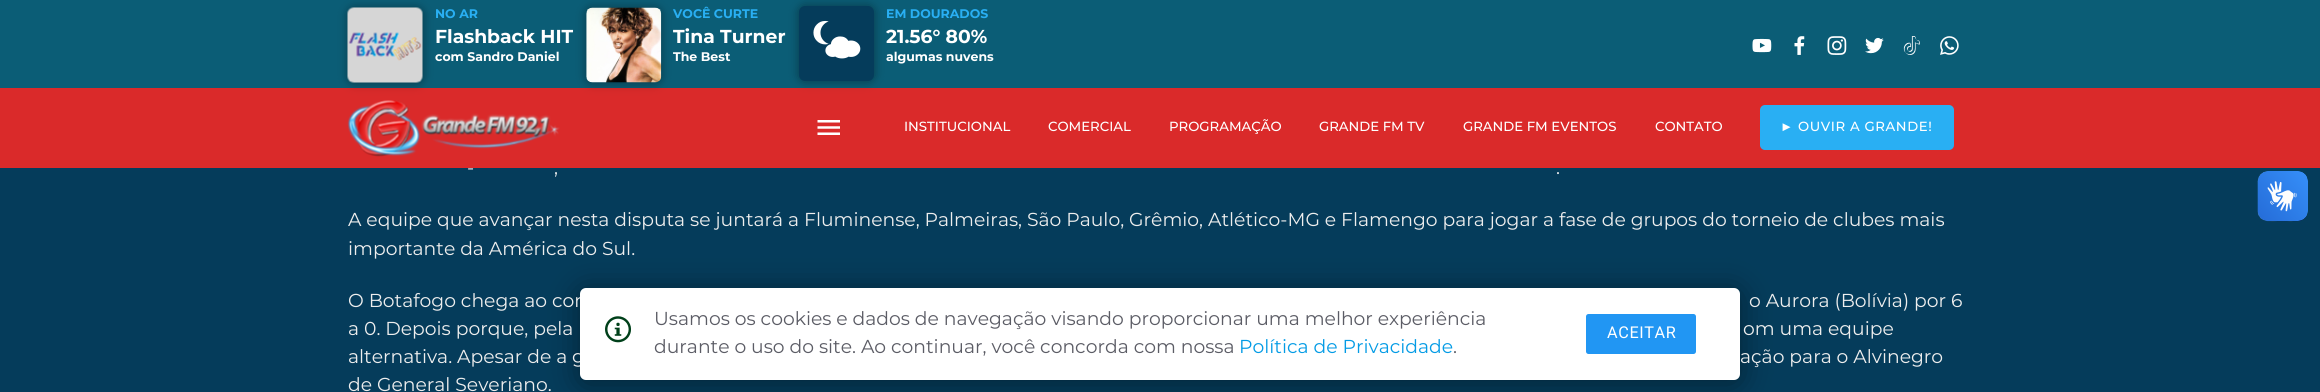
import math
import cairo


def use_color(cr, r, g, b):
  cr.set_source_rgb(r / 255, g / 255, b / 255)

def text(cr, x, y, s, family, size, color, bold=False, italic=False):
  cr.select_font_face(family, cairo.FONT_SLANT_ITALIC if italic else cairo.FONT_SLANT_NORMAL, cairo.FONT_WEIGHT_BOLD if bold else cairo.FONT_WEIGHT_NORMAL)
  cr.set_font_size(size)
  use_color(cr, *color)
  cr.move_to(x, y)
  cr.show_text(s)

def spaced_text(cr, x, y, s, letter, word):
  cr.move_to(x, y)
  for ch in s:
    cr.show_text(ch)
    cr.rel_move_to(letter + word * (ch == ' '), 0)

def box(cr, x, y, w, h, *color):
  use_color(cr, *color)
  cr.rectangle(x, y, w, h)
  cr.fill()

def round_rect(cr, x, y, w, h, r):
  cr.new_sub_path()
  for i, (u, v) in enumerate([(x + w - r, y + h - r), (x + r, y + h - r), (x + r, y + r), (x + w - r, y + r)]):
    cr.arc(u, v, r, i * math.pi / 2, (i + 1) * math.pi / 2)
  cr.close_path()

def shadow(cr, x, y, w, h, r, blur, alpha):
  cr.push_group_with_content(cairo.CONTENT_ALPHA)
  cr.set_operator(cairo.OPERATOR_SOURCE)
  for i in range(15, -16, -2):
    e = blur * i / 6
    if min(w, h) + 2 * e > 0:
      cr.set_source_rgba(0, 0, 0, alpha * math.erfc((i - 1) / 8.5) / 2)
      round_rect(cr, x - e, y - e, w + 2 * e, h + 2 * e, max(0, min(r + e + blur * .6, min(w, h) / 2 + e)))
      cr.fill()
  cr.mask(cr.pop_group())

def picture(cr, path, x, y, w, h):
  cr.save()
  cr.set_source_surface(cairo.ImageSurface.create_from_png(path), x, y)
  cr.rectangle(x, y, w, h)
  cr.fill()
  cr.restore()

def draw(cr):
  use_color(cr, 5, 60, 91)
  cr.paint()
  box(cr, 0, 0, 2320, 88, 11, 93, 118)
  box(cr, 0, 88, 2320, 80, 218, 42, 42)
  use_color(cr, 3, 3, 3)
  shadow(cr, 348, 8, 75, 75, 6, 5, 0.4)
  picture(cr, "img_01.png", 347, 7, 76, 76)
  shadow(cr, 586, 8, 75, 75, 6, 5, 0.4)
  picture(cr, "img_02.png", 586, 7, 76, 76)
  shadow(cr, 799, 6, 75, 75, 6, 5, 0.4)
  use_color(cr, 5, 60, 91)
  round_rect(cr, 799, 6, 75, 75, 6)
  cr.fill()
  picture(cr, "img_03.png", 813, 20, 48, 39)
  picture(cr, "img_04.png", 1752, 38, 20, 15)
  picture(cr, "img_05.png", 1794, 36, 11, 19)
  picture(cr, "img_06.png", 1827, 36, 20, 19)
  picture(cr, "img_07.png", 1865, 37, 19, 17)
  picture(cr, "img_08.png", 1903, 36, 17, 19)
  picture(cr, "img_09.png", 1940, 36, 19, 19)
  picture(cr, "img_10.png", 347, 100, 213, 57)
  picture(cr, "img_11.png", 817, 120, 23, 15)
  use_color(cr, 41, 175, 243)
  round_rect(cr, 1760, 105, 194, 45, 5)
  cr.fill()
  picture(cr, "img_12.png", 2257, 171, 51, 51)
  picture(cr, "img_13.png", 2258, 171, 50, 50)
  use_color(cr, 0, 0, 0)
  shadow(cr, 580, 291, 1160, 93, 6, 15.5, 0.41)
  text(cr, 435, 18, "NO AR", "Montserrat", 12.5, (41, 175, 243), bold=True)
  text(cr, 435, 43, "Flashback HIT", "Montserrat", 18.75, (255, 255, 255), bold=True)
  text(cr, 435, 61, "com Sandro Daniel", "Montserrat", 12.5, (255, 255, 255), bold=True)
  text(cr, 673, 18, "VOCÊ CURTE", "Montserrat", 12.5, (41, 175, 243), bold=True)
  text(cr, 673, 43, "Tina Turner", "Montserrat", 18.75, (255, 255, 255), bold=True)
  text(cr, 673, 61, "The Best", "Montserrat", 12.5, (255, 255, 255), bold=True)
  text(cr, 886, 18, "EM DOURADOS", "Montserrat", 12.5, (41, 175, 243), bold=True)
  text(cr, 886, 43, "21.56° 80%", "Montserrat", 18.75, (255, 255, 255), bold=True)
  text(cr, 886, 61, "algumas nuvens", "Montserrat", 12.5, (255, 255, 255), bold=True)
  text(cr, 904, 131, "INSTITUCIONAL", "Montserrat Medium", 13.25, (255, 255, 255))
  text(cr, 1048, 131, "COMERCIAL", "Montserrat Medium", 13.25, (255, 255, 255))
  text(cr, 1169, 131, "PROGRAMAÇÃO", "Montserrat Medium", 13.25, (255, 255, 255))
  text(cr, 1319, 131, "GRANDE FM TV", "Montserrat Medium", 13.25, (255, 255, 255))
  text(cr, 1463, 131, "GRANDE FM EVENTOS", "Montserrat Medium", 13.25, (255, 255, 255))
  text(cr, 1655, 131, "CONTATO", "Montserrat Medium", 13.25, (255, 255, 255))
  cr.select_font_face("Liberation Serif")
  spaced_text(cr, 1780, 131, "►", 0.6, 0)
  cr.select_font_face("Montserrat Medium")
  spaced_text(cr, 1798, 131, "OUVIR A GRANDE!", 0.6, 0)
  text(cr, 467, 174, "-", "Montserrat", 18.75, (238, 238, 238))
  text(cr, 554, 174, ",", "Montserrat", 18.75, (238, 238, 238))
  text(cr, 1556, 174, ".", "Montserrat", 18.75, (238, 238, 238))
  text(cr, 348, 226, "A equipe que avançar nesta disputa se juntará a Fluminense, Palmeiras, São Paulo, Grêmio, Atlético-MG e Flamengo para jogar a fase de grupos do torneio de clubes mais", "Montserrat", 18.75, (238, 238, 238))
  text(cr, 348, 255, "importante da América do Sul.", "Montserrat", 18.75, (238, 238, 238))
  text(cr, 348, 307, "O Botafogo chega ao con", "Montserrat", 18.75, (238, 238, 238))
  text(cr, 1749, 307, "o Aurora (Bolívia) por 6", "Montserrat", 18.75, (238, 238, 238))
  text(cr, 348, 335, "a 0. Depois porque, pela", "Montserrat", 18.75, (238, 238, 238))
  text(cr, 1743, 335, "om uma equipe", "Montserrat", 18.75, (238, 238, 238))
  text(cr, 348, 363, "alternativa. Apesar de a g", "Montserrat", 18.75, (238, 238, 238))
  text(cr, 1740, 363, "ação para o Alvinegro", "Montserrat", 18.75, (238, 238, 238))
  text(cr, 348, 391, "de General Severiano.", "Montserrat", 18.75, (238, 238, 238))
  use_color(cr, 255, 255, 255)
  round_rect(cr, 580, 288, 1160, 92, 6)
  cr.fill()
  picture(cr, "img_14.png", 605, 316, 26, 27)
  text(cr, 654, 325, "Usamos os cookies e dados de navegação visando proporcionar uma melhor experiência", "Montserrat", 18.75, (91, 92, 101))
  text(cr, 654, 353, "durante o uso do site. Ao continuar, você concorda com nossa", "Montserrat", 18.75, (91, 92, 101))
  text(cr, 1239, 353, "Política de Privacidade", "Montserrat", 18.75, (3, 155, 229))
  text(cr, 1453, 353, ".", "Montserrat", 18.75, (91, 92, 101))
  use_color(cr, 33, 150, 243)
  round_rect(cr, 1586, 314, 110, 40, 2.5)
  cr.fill()
  cr.select_font_face("Roboto")
  cr.set_font_size(16.25)
  use_color(cr, 255, 255, 255)
  spaced_text(cr, 1607, 338, "ACEITAR", 0.6, 0)


surface = cairo.ImageSurface(cairo.FORMAT_RGB24, 2320, 392)
cr = cairo.Context(surface)
options = cairo.FontOptions()
options.set_hint_metrics(cairo.HINT_METRICS_OFF)
options.set_hint_style(cairo.HINT_STYLE_NONE)
cr.set_font_options(options)
cr.set_miter_limit(4)
draw(cr)
surface.write_to_png("out.png")
